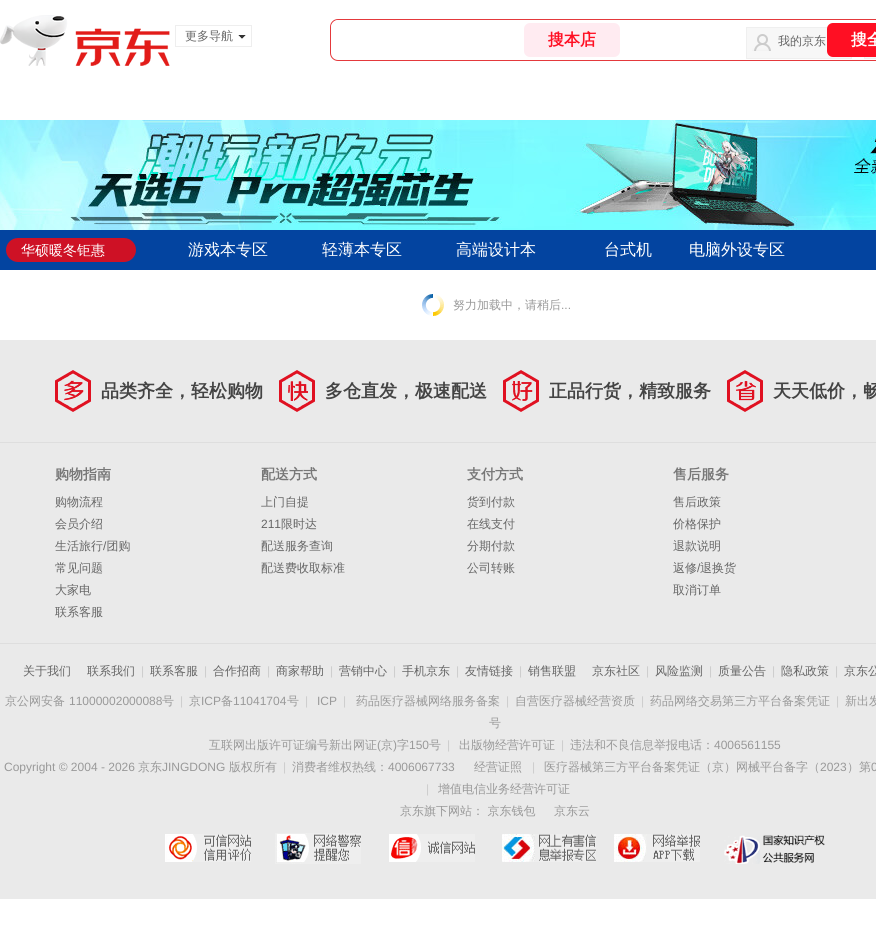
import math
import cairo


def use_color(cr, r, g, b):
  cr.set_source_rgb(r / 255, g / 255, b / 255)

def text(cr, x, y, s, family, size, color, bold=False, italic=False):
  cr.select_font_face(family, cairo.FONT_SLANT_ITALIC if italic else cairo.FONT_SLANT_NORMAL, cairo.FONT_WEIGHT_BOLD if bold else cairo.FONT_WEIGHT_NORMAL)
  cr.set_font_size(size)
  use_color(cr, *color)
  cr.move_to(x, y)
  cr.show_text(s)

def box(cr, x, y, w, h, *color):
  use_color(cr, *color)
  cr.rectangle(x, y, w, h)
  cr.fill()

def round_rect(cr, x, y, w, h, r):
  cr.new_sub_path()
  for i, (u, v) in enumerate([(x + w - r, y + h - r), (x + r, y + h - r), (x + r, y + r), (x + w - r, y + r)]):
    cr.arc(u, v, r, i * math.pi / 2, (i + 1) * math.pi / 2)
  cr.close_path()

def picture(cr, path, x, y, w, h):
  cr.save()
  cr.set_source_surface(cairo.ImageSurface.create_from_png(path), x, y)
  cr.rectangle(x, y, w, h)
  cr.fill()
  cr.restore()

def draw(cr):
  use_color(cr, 255, 255, 255)
  cr.paint()
  picture(cr, "img_01.png", 0, 15, 170, 51)
  cr.rectangle(175.5, 25.5, 76, 21)
  use_color(cr, 238, 238, 238)
  cr.set_line_width(1)
  cr.stroke()
  use_color(cr, 51, 51, 51)
  cr.new_path()
  cr.move_to(238, 35)
  cr.line_to(246, 35)
  cr.line_to(242, 39)
  cr.close_path()
  cr.fill()
  use_color(cr, 255, 255, 255)
  cr.new_path()
  cr.move_to(246, 35)
  cr.line_to(246, 43)
  cr.line_to(242, 39)
  cr.close_path()
  cr.move_to(238, 43)
  cr.line_to(238, 35)
  cr.line_to(242, 39)
  cr.close_path()
  cr.fill()
  box(cr, 865, 57, 11, 1, 247, 247, 247)
  cr.rectangle(864.5, 27.5, 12, 31)
  use_color(cr, 239, 239, 239)
  cr.stroke()
  box(cr, 747, 28, 104, 30, 247, 247, 247)
  picture(cr, "img_02.png", 752, 34, 19, 17)
  cr.rectangle(746.5, 27.5, 105, 31)
  use_color(cr, 239, 239, 239)
  cr.stroke()
  round_rect(cr, 330.5, 19.5, 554, 41, 7.5)
  use_color(cr, 228, 57, 60)
  cr.stroke()
  use_color(cr, 255, 255, 255)
  cr.new_path()
  cr.move_to(339, 20)
  cr.line_to(526, 20)
  cr.line_to(526, 50)
  cr.line_to(331, 50)
  cr.line_to(331, 28)
  cr.curve_to(331, 23.5, 334.5, 20, 339, 20)
  cr.close_path()
  cr.fill()
  use_color(cr, 255, 235, 241)
  round_rect(cr, 524, 23, 96, 34, 6)
  cr.fill()
  use_color(cr, 255, 15, 35)
  round_rect(cr, 827, 23, 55, 34, 6)
  cr.fill()
  picture(cr, "img_03.png", 0, 120, 876, 110)
  box(cr, 0, 230, 876, 40, 3, 68, 160)
  use_color(cr, 206, 17, 37)
  round_rect(cr, 6, 238, 130, 24, 12)
  cr.fill()
  picture(cr, "img_04.png", 422, 294, 22, 22)
  box(cr, 0, 340, 876, 559, 234, 234, 234)
  picture(cr, "img_05.png", 55, 370, 36, 42)
  picture(cr, "img_06.png", 279, 370, 36, 42)
  picture(cr, "img_07.png", 503, 370, 36, 42)
  picture(cr, "img_08.png", 727, 370, 36, 42)
  box(cr, 0, 442, 876, 1, 222, 222, 222)
  box(cr, 0, 643, 876, 1, 222, 222, 222)
  picture(cr, "img_09.png", 165, 834, 86, 28)
  picture(cr, "img_10.png", 275, 833, 86, 31)
  picture(cr, "img_11.png", 389, 834, 86, 28)
  picture(cr, "img_12.png", 502, 834, 94, 28)
  picture(cr, "img_13.png", 614, 834, 86, 28)
  picture(cr, "img_14.png", 724, 835, 101, 29)
  text(cr, 185, 40, "更多导航", "WenQuanYi Zen Hei Medium", 12, (102, 102, 102))
  text(cr, 548, 45, "搜本店", "WenQuanYi Zen Hei", 16, (255, 15, 35), bold=True)
  text(cr, 851, 45, "搜全", "WenQuanYi Zen Hei", 16, (255, 255, 255), bold=True)
  text(cr, 778, 45, "我的京东", "WenQuanYi Zen Hei Medium", 12, (102, 102, 102))
  text(cr, 21, 255, "华硕暖冬钜惠", "WenQuanYi Zen Hei Medium", 14, (255, 255, 255))
  text(cr, 188, 255, "游戏本专区", "WenQuanYi Zen Hei Medium", 16, (255, 255, 255))
  text(cr, 322, 255, "轻薄本专区", "WenQuanYi Zen Hei Medium", 16, (255, 255, 255))
  text(cr, 456, 255, "高端设计本", "WenQuanYi Zen Hei Medium", 16, (255, 255, 255))
  text(cr, 604, 255, "台式机", "WenQuanYi Zen Hei Medium", 16, (255, 255, 255))
  text(cr, 689, 255, "电脑外设专区", "WenQuanYi Zen Hei Medium", 16, (255, 255, 255))
  text(cr, 453, 309, "努力加载中，请稍后", "WenQuanYi Zen Hei Medium", 12, (153, 153, 153))
  text(cr, 561, 309, "...", "Liberation Sans", 12, (153, 153, 153))
  text(cr, 101, 397, "品类齐全，轻松购物", "WenQuanYi Zen Hei", 18, (68, 68, 68), bold=True)
  text(cr, 325, 397, "多仓直发，极速配送", "WenQuanYi Zen Hei", 18, (68, 68, 68), bold=True)
  text(cr, 549, 397, "正品行货，精致服务", "WenQuanYi Zen Hei", 18, (68, 68, 68), bold=True)
  text(cr, 773, 397, "天天低价，畅", "WenQuanYi Zen Hei", 18, (68, 68, 68), bold=True)
  text(cr, 55, 479, "购物指南", "WenQuanYi Zen Hei", 14, (119, 119, 119), bold=True)
  text(cr, 55, 506, "购物流程", "WenQuanYi Zen Hei Medium", 12, (102, 102, 102))
  text(cr, 55, 528, "会员介绍", "WenQuanYi Zen Hei Medium", 12, (102, 102, 102))
  text(cr, 55, 550, "生活旅行 团购", "WenQuanYi Zen Hei Medium", 12, (102, 102, 102))
  text(cr, 103, 550, "/", "Liberation Sans", 12, (102, 102, 102))
  text(cr, 55, 572, "常见问题", "WenQuanYi Zen Hei Medium", 12, (102, 102, 102))
  text(cr, 55, 594, "大家电", "WenQuanYi Zen Hei Medium", 12, (102, 102, 102))
  text(cr, 55, 616, "联系客服", "WenQuanYi Zen Hei Medium", 12, (102, 102, 102))
  text(cr, 261, 479, "配送方式", "WenQuanYi Zen Hei", 14, (119, 119, 119), bold=True)
  text(cr, 261, 506, "上门自提", "WenQuanYi Zen Hei Medium", 12, (102, 102, 102))
  text(cr, 261, 528, "211", "Liberation Sans", 12, (102, 102, 102))
  text(cr, 281, 528, "限时达", "WenQuanYi Zen Hei Medium", 12, (102, 102, 102))
  text(cr, 261, 550, "配送服务查询", "WenQuanYi Zen Hei Medium", 12, (102, 102, 102))
  text(cr, 261, 572, "配送费收取标准", "WenQuanYi Zen Hei Medium", 12, (102, 102, 102))
  text(cr, 467, 479, "支付方式", "WenQuanYi Zen Hei", 14, (119, 119, 119), bold=True)
  text(cr, 467, 506, "货到付款", "WenQuanYi Zen Hei Medium", 12, (102, 102, 102))
  text(cr, 467, 528, "在线支付", "WenQuanYi Zen Hei Medium", 12, (102, 102, 102))
  text(cr, 467, 550, "分期付款", "WenQuanYi Zen Hei Medium", 12, (102, 102, 102))
  text(cr, 467, 572, "公司转账", "WenQuanYi Zen Hei Medium", 12, (102, 102, 102))
  text(cr, 673, 479, "售后服务", "WenQuanYi Zen Hei", 14, (119, 119, 119), bold=True)
  text(cr, 673, 506, "售后政策", "WenQuanYi Zen Hei Medium", 12, (102, 102, 102))
  text(cr, 673, 528, "价格保护", "WenQuanYi Zen Hei Medium", 12, (102, 102, 102))
  text(cr, 673, 550, "退款说明", "WenQuanYi Zen Hei Medium", 12, (102, 102, 102))
  text(cr, 673, 572, "返修", "WenQuanYi Zen Hei Medium", 12, (102, 102, 102))
  text(cr, 697, 572, "/", "Liberation Sans", 12, (102, 102, 102))
  text(cr, 700, 572, "退换货", "WenQuanYi Zen Hei Medium", 12, (102, 102, 102))
  text(cr, 673, 594, "取消订单", "WenQuanYi Zen Hei Medium", 12, (102, 102, 102))
  text(cr, 23, 675, "关于我们", "WenQuanYi Zen Hei Medium", 12, (102, 102, 102))
  text(cr, 87, 675, "联系我们", "WenQuanYi Zen Hei Medium", 12, (102, 102, 102))
  text(cr, 141, 675, "|", "Liberation Sans", 12, (204, 204, 204))
  text(cr, 150, 675, "联系客服", "WenQuanYi Zen Hei Medium", 12, (102, 102, 102))
  text(cr, 204, 675, "|", "Liberation Sans", 12, (204, 204, 204))
  text(cr, 213, 675, "合作招商", "WenQuanYi Zen Hei Medium", 12, (102, 102, 102))
  text(cr, 267, 675, "|", "Liberation Sans", 12, (204, 204, 204))
  text(cr, 276, 675, "商家帮助", "WenQuanYi Zen Hei Medium", 12, (102, 102, 102))
  text(cr, 330, 675, "|", "Liberation Sans", 12, (204, 204, 204))
  text(cr, 339, 675, "营销中心", "WenQuanYi Zen Hei Medium", 12, (102, 102, 102))
  text(cr, 393, 675, "|", "Liberation Sans", 12, (204, 204, 204))
  text(cr, 402, 675, "手机京东", "WenQuanYi Zen Hei Medium", 12, (102, 102, 102))
  text(cr, 456, 675, "|", "Liberation Sans", 12, (204, 204, 204))
  text(cr, 465, 675, "友情链接", "WenQuanYi Zen Hei Medium", 12, (102, 102, 102))
  text(cr, 519, 675, "|", "Liberation Sans", 12, (204, 204, 204))
  text(cr, 528, 675, "销售联盟", "WenQuanYi Zen Hei Medium", 12, (102, 102, 102))
  text(cr, 592, 675, "京东社区", "WenQuanYi Zen Hei Medium", 12, (102, 102, 102))
  text(cr, 646, 675, "|", "Liberation Sans", 12, (204, 204, 204))
  text(cr, 655, 675, "风险监测", "WenQuanYi Zen Hei Medium", 12, (102, 102, 102))
  text(cr, 709, 675, "|", "Liberation Sans", 12, (204, 204, 204))
  text(cr, 718, 675, "质量公告", "WenQuanYi Zen Hei Medium", 12, (102, 102, 102))
  text(cr, 772, 675, "|", "Liberation Sans", 12, (204, 204, 204))
  text(cr, 781, 675, "隐私政策", "WenQuanYi Zen Hei Medium", 12, (102, 102, 102))
  text(cr, 835, 675, "|", "Liberation Sans", 12, (204, 204, 204))
  text(cr, 844, 675, "京东公", "WenQuanYi Zen Hei Medium", 12, (102, 102, 102))
  text(cr, 5, 705, "京公网安备", "WenQuanYi Zen Hei Medium", 12, (153, 153, 153))
  text(cr, 69, 705, "11000002000088", "Liberation Sans", 12, (153, 153, 153))
  text(cr, 162, 705, "号", "WenQuanYi Zen Hei Medium", 12, (153, 153, 153))
  text(cr, 180, 705, "|", "Liberation Sans", 12, (204, 204, 204))
  text(cr, 189, 705, "京", "WenQuanYi Zen Hei Medium", 12, (153, 153, 153))
  text(cr, 201, 705, "ICP", "Liberation Sans", 12, (153, 153, 153))
  text(cr, 221, 705, "备", "WenQuanYi Zen Hei Medium", 12, (153, 153, 153))
  text(cr, 233, 705, "11041704", "Liberation Sans", 12, (153, 153, 153))
  text(cr, 287, 705, "号", "WenQuanYi Zen Hei Medium", 12, (153, 153, 153))
  text(cr, 305, 705, "|", "Liberation Sans", 12, (204, 204, 204))
  text(cr, 317, 705, "ICP", "Liberation Sans", 12, (153, 153, 153))
  text(cr, 343, 705, "|", "Liberation Sans", 12, (204, 204, 204))
  text(cr, 356, 705, "药品医疗器械网络服务备案", "WenQuanYi Zen Hei Medium", 12, (153, 153, 153))
  text(cr, 506, 705, "|", "Liberation Sans", 12, (204, 204, 204))
  text(cr, 515, 705, "自营医疗器械经营资质", "WenQuanYi Zen Hei Medium", 12, (153, 153, 153))
  text(cr, 641, 705, "|", "Liberation Sans", 12, (204, 204, 204))
  text(cr, 650, 705, "药品网络交易第三方平台备案凭证", "WenQuanYi Zen Hei Medium", 12, (153, 153, 153))
  text(cr, 836, 705, "|", "Liberation Sans", 12, (204, 204, 204))
  text(cr, 845, 705, "新出发", "WenQuanYi Zen Hei Medium", 12, (153, 153, 153))
  text(cr, 489, 727, "号", "WenQuanYi Zen Hei Medium", 12, (153, 153, 153))
  text(cr, 209, 749, "互联网出版许可证编号新出网证", "WenQuanYi Zen Hei Medium", 12, (153, 153, 153))
  text(cr, 377, 749, "(", "Liberation Sans", 12, (153, 153, 153))
  text(cr, 381, 749, "京", "WenQuanYi Zen Hei Medium", 12, (153, 153, 153))
  text(cr, 393, 749, ")", "Liberation Sans", 12, (153, 153, 153))
  text(cr, 397, 749, "字", "WenQuanYi Zen Hei Medium", 12, (153, 153, 153))
  text(cr, 409, 749, "150", "Liberation Sans", 12, (153, 153, 153))
  text(cr, 429, 749, "号", "WenQuanYi Zen Hei Medium", 12, (153, 153, 153))
  text(cr, 447, 749, "|", "Liberation Sans", 12, (204, 204, 204))
  text(cr, 459, 749, "出版物经营许可证", "WenQuanYi Zen Hei Medium", 12, (153, 153, 153))
  text(cr, 561, 749, "|", "Liberation Sans", 12, (204, 204, 204))
  text(cr, 570, 749, "违法和不良信息举报电话：", "WenQuanYi Zen Hei Medium", 12, (153, 153, 153))
  text(cr, 714, 749, "4006561155", "Liberation Sans", 12, (153, 153, 153))
  text(cr, 4, 771, "Copyright © 2004 - 2026", "Liberation Sans", 12, (153, 153, 153))
  text(cr, 138, 771, "京东", "WenQuanYi Zen Hei Medium", 12, (153, 153, 153))
  text(cr, 162, 771, "JINGDONG", "Liberation Sans", 12, (153, 153, 153))
  text(cr, 229, 771, "版权所有", "WenQuanYi Zen Hei Medium", 12, (153, 153, 153))
  text(cr, 283, 771, "|", "Liberation Sans", 12, (204, 204, 204))
  text(cr, 292, 771, "消费者维权热线：", "WenQuanYi Zen Hei Medium", 12, (153, 153, 153))
  text(cr, 388, 771, "4006067733", "Liberation Sans", 12, (153, 153, 153))
  text(cr, 474, 771, "经营证照", "WenQuanYi Zen Hei Medium", 12, (153, 153, 153))
  text(cr, 532, 771, "|", "Liberation Sans", 12, (204, 204, 204))
  text(cr, 544, 771, "医疗器械第三方平台备案凭证（京）网械平台备字（", "WenQuanYi Zen Hei Medium", 12, (153, 153, 153))
  text(cr, 820, 771, "2023", "Liberation Sans", 12, (153, 153, 153))
  text(cr, 847, 771, "）第", "WenQuanYi Zen Hei Medium", 12, (153, 153, 153))
  text(cr, 871, 771, "0", "Liberation Sans", 12, (153, 153, 153))
  text(cr, 426, 793, "|", "Liberation Sans", 12, (204, 204, 204))
  text(cr, 438, 793, "增值电信业务经营许可证", "WenQuanYi Zen Hei Medium", 12, (153, 153, 153))
  text(cr, 400, 815, "京东旗下网站： 京东钱包", "WenQuanYi Zen Hei Medium", 12, (153, 153, 153))
  text(cr, 554, 815, "京东云", "WenQuanYi Zen Hei Medium", 12, (153, 153, 153))


surface = cairo.ImageSurface(cairo.FORMAT_RGB24, 876, 942)
cr = cairo.Context(surface)
options = cairo.FontOptions()
options.set_hint_metrics(cairo.HINT_METRICS_OFF)
options.set_hint_style(cairo.HINT_STYLE_NONE)
cr.set_font_options(options)
cr.set_miter_limit(4)
draw(cr)
surface.write_to_png("out.png")
